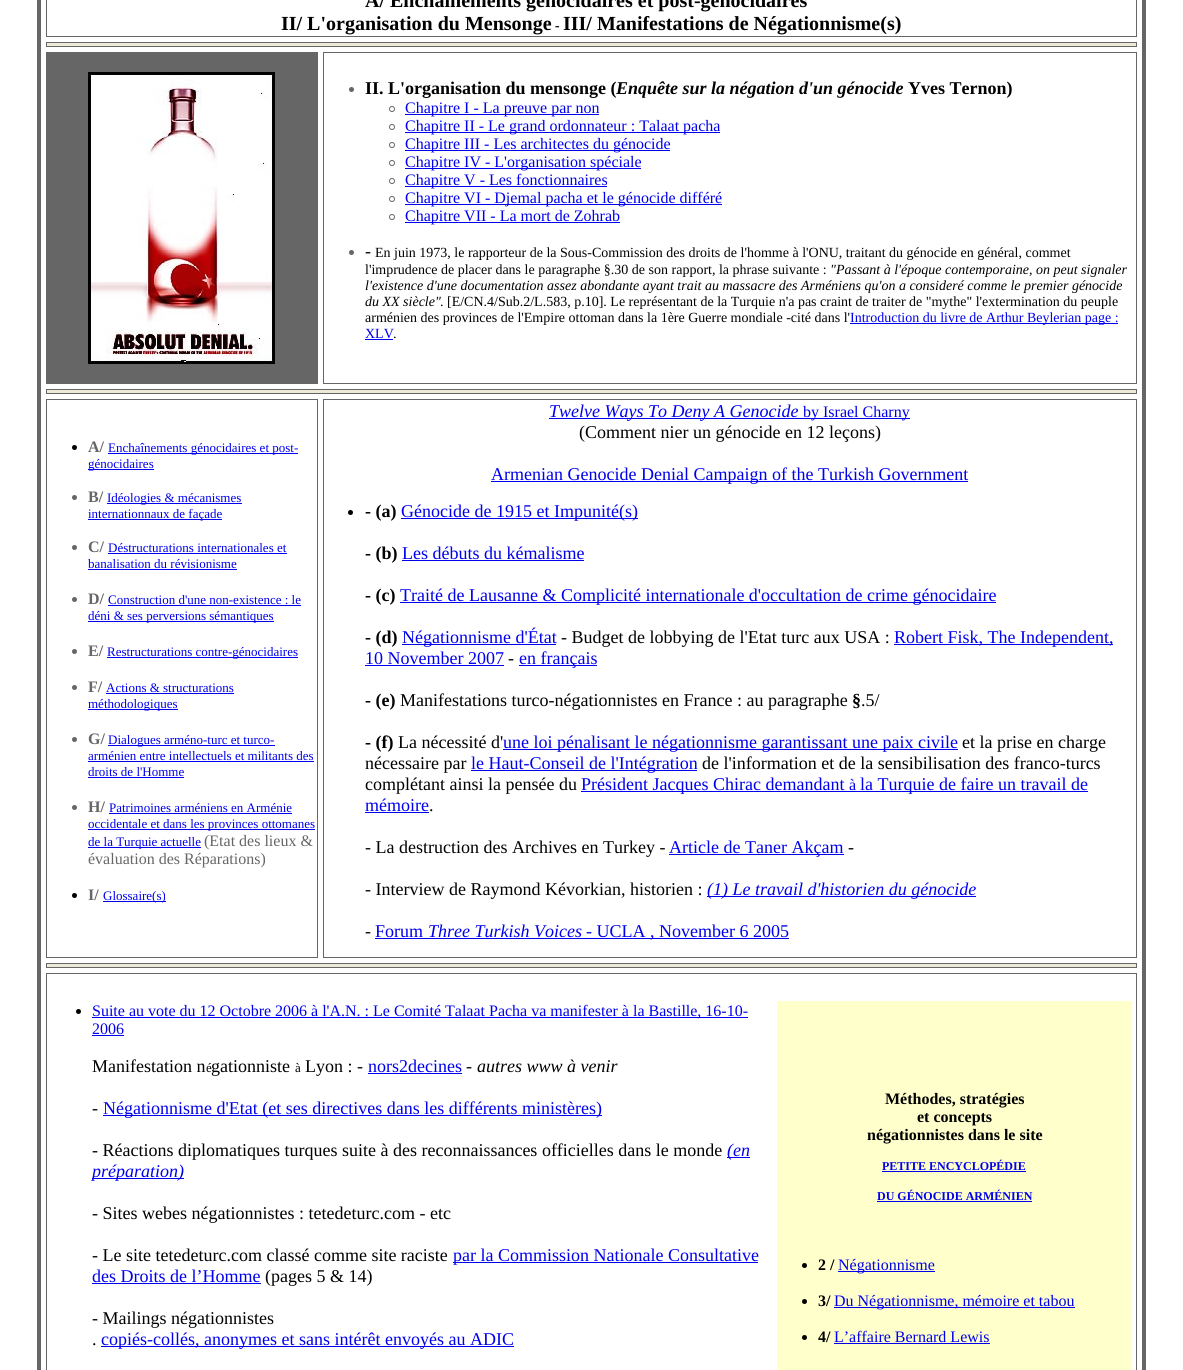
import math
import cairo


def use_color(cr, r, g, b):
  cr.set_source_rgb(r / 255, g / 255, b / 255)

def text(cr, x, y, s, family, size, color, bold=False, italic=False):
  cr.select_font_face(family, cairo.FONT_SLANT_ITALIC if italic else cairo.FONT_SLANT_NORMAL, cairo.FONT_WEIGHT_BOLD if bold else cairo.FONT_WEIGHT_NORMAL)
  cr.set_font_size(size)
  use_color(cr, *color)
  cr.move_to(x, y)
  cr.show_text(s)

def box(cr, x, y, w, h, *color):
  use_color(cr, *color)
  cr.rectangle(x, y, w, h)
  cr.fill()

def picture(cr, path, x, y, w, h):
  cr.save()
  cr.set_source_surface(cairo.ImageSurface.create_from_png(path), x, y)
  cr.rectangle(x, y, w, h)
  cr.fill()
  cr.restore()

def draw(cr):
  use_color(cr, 255, 255, 255)
  cr.paint()
  cr.rectangle(39, -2, 1105, 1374)
  use_color(cr, 102, 102, 102)
  cr.set_line_width(4)
  cr.stroke()
  cr.rectangle(46.5, -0.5, 1090, 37)
  cr.set_line_width(1)
  cr.stroke()
  use_color(cr, 236, 233, 216)
  cr.rectangle(46.5, 42.5, 1090, 4)
  cr.fill_preserve()
  use_color(cr, 102, 102, 102)
  cr.stroke()
  box(cr, 46, 52, 272, 332, 102, 102, 102)
  cr.rectangle(89, 73, 185, 290)
  use_color(cr, 0, 0, 0)
  cr.set_line_width(2)
  cr.stroke()
  picture(cr, "img_01.png", 90, 74, 183, 288)
  cr.rectangle(323.5, 52.5, 813, 331)
  use_color(cr, 102, 102, 102)
  cr.set_line_width(1)
  cr.stroke()
  cr.arc(351.5, 89.5, 2.5, 0, 2 * math.pi)
  cr.fill()
  cr.arc(392, 109, 2.5, 0, 2 * math.pi)
  cr.stroke()
  box(cr, 405, 114, 194, 1, 0, 0, 238)
  cr.arc(392, 127, 2.5, 0, 2 * math.pi)
  use_color(cr, 102, 102, 102)
  cr.stroke()
  box(cr, 405, 132, 315, 1, 0, 0, 238)
  cr.arc(392, 145, 2.5, 0, 2 * math.pi)
  use_color(cr, 102, 102, 102)
  cr.stroke()
  box(cr, 405, 150, 265, 1, 0, 0, 238)
  cr.arc(392, 163, 2.5, 0, 2 * math.pi)
  use_color(cr, 102, 102, 102)
  cr.stroke()
  box(cr, 405, 168, 236, 1, 0, 0, 238)
  cr.arc(392, 181, 2.5, 0, 2 * math.pi)
  use_color(cr, 102, 102, 102)
  cr.stroke()
  box(cr, 405, 186, 202, 1, 0, 0, 238)
  cr.arc(392, 199, 2.5, 0, 2 * math.pi)
  use_color(cr, 102, 102, 102)
  cr.stroke()
  box(cr, 405, 204, 317, 1, 0, 0, 238)
  cr.arc(392, 217, 2.5, 0, 2 * math.pi)
  use_color(cr, 102, 102, 102)
  cr.stroke()
  box(cr, 405, 222, 215, 1, 0, 0, 238)
  use_color(cr, 102, 102, 102)
  cr.arc(351.5, 252.5, 2.5, 0, 2 * math.pi)
  cr.fill()
  box(cr, 850, 323, 268, 1, 0, 0, 238)
  box(cr, 365, 339, 28, 1, 0, 0, 238)
  use_color(cr, 236, 233, 216)
  cr.rectangle(46.5, 389.5, 1090, 4)
  cr.fill_preserve()
  use_color(cr, 102, 102, 102)
  cr.stroke()
  cr.rectangle(46.5, 399.5, 271, 558)
  cr.stroke()
  use_color(cr, 0, 0, 0)
  cr.arc(74.5, 447.5, 2.5, 0, 2 * math.pi)
  cr.fill()
  box(cr, 108, 453, 190, 1, 0, 0, 238)
  box(cr, 88, 469, 66, 1, 0, 0, 238)
  use_color(cr, 102, 102, 102)
  cr.arc(74.5, 497.5, 2.5, 0, 2 * math.pi)
  cr.fill()
  box(cr, 107, 503, 135, 1, 0, 0, 238)
  box(cr, 88, 519, 134, 1, 0, 0, 238)
  use_color(cr, 102, 102, 102)
  cr.arc(74.5, 547.5, 2.5, 0, 2 * math.pi)
  cr.fill()
  box(cr, 108, 553, 179, 1, 0, 0, 238)
  box(cr, 88, 569, 149, 1, 0, 0, 238)
  use_color(cr, 102, 102, 102)
  cr.arc(74.5, 599.5, 2.5, 0, 2 * math.pi)
  cr.fill()
  box(cr, 108, 605, 193, 1, 0, 0, 238)
  box(cr, 88, 621, 186, 1, 0, 0, 238)
  use_color(cr, 102, 102, 102)
  cr.arc(74.5, 651.5, 2.5, 0, 2 * math.pi)
  cr.fill()
  box(cr, 107, 657, 191, 1, 0, 0, 238)
  use_color(cr, 102, 102, 102)
  cr.arc(74.5, 687.5, 2.5, 0, 2 * math.pi)
  cr.fill()
  box(cr, 106, 693, 128, 1, 0, 0, 238)
  box(cr, 88, 709, 90, 1, 0, 0, 238)
  use_color(cr, 102, 102, 102)
  cr.arc(74.5, 739.5, 2.5, 0, 2 * math.pi)
  cr.fill()
  box(cr, 108, 745, 167, 1, 0, 0, 238)
  box(cr, 88, 761, 226, 1, 0, 0, 238)
  box(cr, 88, 777, 96, 1, 0, 0, 238)
  use_color(cr, 102, 102, 102)
  cr.arc(74.5, 807.5, 2.5, 0, 2 * math.pi)
  cr.fill()
  box(cr, 109, 813, 183, 1, 0, 0, 238)
  box(cr, 88, 829, 227, 1, 0, 0, 238)
  box(cr, 88, 847, 113, 1, 0, 0, 238)
  use_color(cr, 0, 0, 0)
  cr.arc(74.5, 895.5, 2.5, 0, 2 * math.pi)
  cr.fill()
  box(cr, 103, 901, 63, 1, 0, 0, 238)
  cr.rectangle(323.5, 399.5, 813, 558)
  use_color(cr, 102, 102, 102)
  cr.stroke()
  box(cr, 549, 418, 361, 1, 0, 0, 238)
  box(cr, 491, 481, 477, 1, 0, 0, 238)
  use_color(cr, 0, 0, 0)
  cr.arc(350.5, 512.5, 2.5, 0, 2 * math.pi)
  cr.fill()
  box(cr, 401, 518, 237, 1, 0, 0, 238)
  box(cr, 402, 560, 182, 1, 0, 0, 238)
  box(cr, 400, 602, 596, 1, 0, 0, 238)
  box(cr, 402, 644, 154, 1, 0, 0, 238)
  box(cr, 894, 644, 219, 1, 0, 0, 238)
  box(cr, 365, 665, 139, 1, 0, 0, 238)
  box(cr, 519, 665, 78, 1, 0, 0, 238)
  box(cr, 503, 749, 455, 1, 0, 0, 238)
  box(cr, 471, 770, 226, 1, 0, 0, 238)
  box(cr, 581, 791, 507, 1, 0, 0, 238)
  box(cr, 365, 812, 64, 1, 0, 0, 238)
  box(cr, 669, 854, 175, 1, 0, 0, 238)
  box(cr, 707, 896, 269, 1, 0, 0, 238)
  box(cr, 375, 938, 414, 1, 0, 0, 238)
  use_color(cr, 236, 233, 216)
  cr.rectangle(46.5, 963.5, 1090, 4)
  cr.fill_preserve()
  use_color(cr, 102, 102, 102)
  cr.stroke()
  cr.rectangle(46.5, 973.5, 1090, 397)
  cr.stroke()
  use_color(cr, 0, 0, 0)
  cr.arc(78.5, 1011.5, 2.5, 0, 2 * math.pi)
  cr.fill()
  box(cr, 92, 1017, 656, 1, 0, 0, 238)
  box(cr, 92, 1035, 32, 1, 0, 0, 238)
  box(cr, 368, 1073, 94, 1, 0, 0, 238)
  box(cr, 103, 1115, 499, 1, 0, 0, 238)
  box(cr, 727, 1157, 23, 1, 0, 0, 238)
  box(cr, 92, 1178, 92, 1, 0, 0, 238)
  box(cr, 453, 1262, 305, 1, 0, 0, 238)
  box(cr, 92, 1283, 169, 1, 0, 0, 238)
  box(cr, 101, 1346, 413, 1, 0, 0, 238)
  box(cr, 777, 1001, 355, 369, 255, 255, 204)
  box(cr, 882, 1171, 144, 1, 0, 0, 238)
  box(cr, 877, 1201, 155, 1, 0, 0, 238)
  use_color(cr, 0, 0, 0)
  cr.arc(804.5, 1265.5, 2.5, 0, 2 * math.pi)
  cr.fill()
  box(cr, 838, 1271, 97, 1, 0, 0, 238)
  use_color(cr, 0, 0, 0)
  cr.arc(804.5, 1301.5, 2.5, 0, 2 * math.pi)
  cr.fill()
  box(cr, 834, 1307, 241, 1, 0, 0, 238)
  use_color(cr, 0, 0, 0)
  cr.arc(804.5, 1337.5, 2.5, 0, 2 * math.pi)
  cr.fill()
  box(cr, 834, 1343, 156, 1, 0, 0, 238)
  text(cr, 365, 7, "A/ Enchaînements génocidaires et post-génocidaires", "Liberation Serif", 20, (0, 0, 0), bold=True)
  text(cr, 281, 30, "II/ L'organisation du Mensonge", "Liberation Serif", 20, (0, 0, 0), bold=True)
  text(cr, 555, 30, "-", "Liberation Serif", 14, (0, 0, 0), bold=True, italic=True)
  text(cr, 563, 30, "III/ Manifestations de Négationnisme(s)", "Liberation Serif", 20, (0, 0, 0), bold=True)
  text(cr, 365, 94, "II. L'organisation du mensonge (", "Liberation Serif", 18, (0, 0, 0), bold=True)
  text(cr, 616, 94, "Enquête sur la négation d'un génocide", "Liberation Serif", 18, (0, 0, 0), bold=True, italic=True)
  text(cr, 908, 94, "Yves Ternon)", "Liberation Serif", 18, (0, 0, 0), bold=True)
  text(cr, 405, 113, "Chapitre I - La preuve par non", "Liberation Serif", 16, (0, 0, 238))
  text(cr, 405, 131, "Chapitre II - Le grand ordonnateur : Talaat pacha", "Liberation Serif", 16, (0, 0, 238))
  text(cr, 405, 149, "Chapitre III - Les architectes du génocide", "Liberation Serif", 16, (0, 0, 238))
  text(cr, 405, 167, "Chapitre IV - L'organisation spéciale", "Liberation Serif", 16, (0, 0, 238))
  text(cr, 405, 185, "Chapitre V - Les fonctionnaires", "Liberation Serif", 16, (0, 0, 238))
  text(cr, 405, 203, "Chapitre VI - Djemal pacha et le génocide différé", "Liberation Serif", 16, (0, 0, 238))
  text(cr, 405, 221, "Chapitre VII - La mort de Zohrab", "Liberation Serif", 16, (0, 0, 238))
  text(cr, 365, 257, "-", "Liberation Serif", 18, (0, 0, 0))
  text(cr, 375, 257, "En juin 1973, le rapporteur de la Sous-Commission des droits de l'homme à l'ONU, traitant du génocide en général, commet", "Liberation Serif", 14, (0, 0, 0))
  text(cr, 365, 274, "l'imprudence de placer dans le paragraphe §.30 de son rapport, la phrase suivante :", "Liberation Serif", 14, (0, 0, 0))
  text(cr, 830, 274, "\"Passant à l'époque contemporaine, on peut signaler", "Liberation Serif", 14, (0, 0, 0), italic=True)
  text(cr, 365, 290, "l'existence d'une documentation assez abondante ayant trait au massacre des Arméniens qu'on a consideré comme le premier génocide", "Liberation Serif", 14, (0, 0, 0), italic=True)
  text(cr, 365, 306, "du XX siècle\"", "Liberation Serif", 14, (0, 0, 0), italic=True)
  text(cr, 440, 306, ". [E/CN.4/Sub.2/L.583, p.10]. Le représentant de la Turquie n'a pas craint de traiter de \"mythe\" l'extermination du peuple", "Liberation Serif", 14, (0, 0, 0))
  text(cr, 365, 322, "arménien des provinces de l'Empire ottoman dans la 1ère Guerre mondiale -cité dans l'", "Liberation Serif", 14, (0, 0, 0))
  text(cr, 850, 322, "Introduction du livre de Arthur Beylerian page :", "Liberation Serif", 14, (0, 0, 238))
  text(cr, 365, 338, "XLV", "Liberation Serif", 14, (0, 0, 238))
  text(cr, 393, 338, ".", "Liberation Serif", 14, (0, 0, 0))
  text(cr, 88, 452, "A/", "Liberation Serif", 16, (102, 102, 102), bold=True)
  text(cr, 108, 452, "Enchaînements génocidaires et post-", "Liberation Serif", 13, (0, 0, 238))
  text(cr, 88, 468, "génocidaires", "Liberation Serif", 13, (0, 0, 238))
  text(cr, 88, 502, "B/", "Liberation Serif", 16, (102, 102, 102), bold=True)
  text(cr, 107, 502, "Idéologies & mécanismes", "Liberation Serif", 13, (0, 0, 238))
  text(cr, 88, 518, "internationnaux de façade", "Liberation Serif", 13, (0, 0, 238))
  text(cr, 88, 552, "C/", "Liberation Serif", 16, (102, 102, 102), bold=True)
  text(cr, 108, 552, "Déstructurations internationales et", "Liberation Serif", 13, (0, 0, 238))
  text(cr, 88, 568, "banalisation du révisionisme", "Liberation Serif", 13, (0, 0, 238))
  text(cr, 88, 604, "D/", "Liberation Serif", 16, (102, 102, 102), bold=True)
  text(cr, 108, 604, "Construction d'une non-existence : le", "Liberation Serif", 13, (0, 0, 238))
  text(cr, 88, 620, "déni & ses perversions sémantiques", "Liberation Serif", 13, (0, 0, 238))
  text(cr, 88, 656, "E/", "Liberation Serif", 16, (102, 102, 102), bold=True)
  text(cr, 107, 656, "Restructurations contre-génocidaires", "Liberation Serif", 13, (0, 0, 238))
  text(cr, 88, 692, "F/", "Liberation Serif", 16, (102, 102, 102), bold=True)
  text(cr, 106, 692, "Actions & structurations", "Liberation Serif", 13, (0, 0, 238))
  text(cr, 88, 708, "méthodologiques", "Liberation Serif", 13, (0, 0, 238))
  text(cr, 88, 744, "G/", "Liberation Serif", 16, (102, 102, 102), bold=True)
  text(cr, 108, 744, "Dialogues arméno-turc et turco-", "Liberation Serif", 13, (0, 0, 238))
  text(cr, 88, 760, "arménien entre intellectuels et militants des", "Liberation Serif", 13, (0, 0, 238))
  text(cr, 88, 776, "droits de l'Homme", "Liberation Serif", 13, (0, 0, 238))
  text(cr, 88, 812, "H/", "Liberation Serif", 16, (102, 102, 102), bold=True)
  text(cr, 109, 812, "Patrimoines arméniens en Arménie", "Liberation Serif", 13, (0, 0, 238))
  text(cr, 88, 828, "occidentale et dans les provinces ottomanes", "Liberation Serif", 13, (0, 0, 238))
  text(cr, 88, 846, "de la Turquie actuelle", "Liberation Serif", 13, (0, 0, 238))
  text(cr, 204, 846, "(Etat des lieux &", "Liberation Serif", 16, (102, 102, 102))
  text(cr, 88, 864, "évaluation des Réparations)", "Liberation Serif", 16, (102, 102, 102))
  text(cr, 88, 900, "I/", "Liberation Serif", 16, (102, 102, 102), bold=True)
  text(cr, 103, 900, "Glossaire(s)", "Liberation Serif", 13, (0, 0, 238))
  text(cr, 549, 417, "Twelve Ways To Deny A Genocide", "Liberation Serif", 18, (0, 0, 238), italic=True)
  text(cr, 803, 417, "by Israel Charny", "Liberation Serif", 16, (0, 0, 238))
  text(cr, 579, 438, "(Comment nier un génocide en 12 leçons)", "Liberation Serif", 18, (0, 0, 0))
  text(cr, 491, 480, "Armenian Genocide Denial Campaign of the Turkish Government", "Liberation Serif", 18, (0, 0, 238))
  text(cr, 365, 517, "- (a)", "Liberation Serif", 18, (0, 0, 0), bold=True)
  text(cr, 401, 517, "Génocide de 1915 et Impunité(s)", "Liberation Serif", 18, (0, 0, 238))
  text(cr, 365, 559, "- (b)", "Liberation Serif", 18, (0, 0, 0), bold=True)
  text(cr, 402, 559, "Les débuts du kémalisme", "Liberation Serif", 18, (0, 0, 238))
  text(cr, 365, 601, "- (c)", "Liberation Serif", 18, (0, 0, 0), bold=True)
  text(cr, 400, 601, "Traité de Lausanne & Complicité internationale d'occultation de crime génocidaire", "Liberation Serif", 18, (0, 0, 238))
  text(cr, 365, 643, "- (d)", "Liberation Serif", 18, (0, 0, 0), bold=True)
  text(cr, 402, 643, "Négationnisme d'État", "Liberation Serif", 18, (0, 0, 238))
  text(cr, 561, 643, "- Budget de lobbying de l'Etat turc aux USA :", "Liberation Serif", 18, (0, 0, 0))
  text(cr, 894, 643, "Robert Fisk, The Independent,", "Liberation Serif", 18, (0, 0, 238))
  text(cr, 365, 664, "10 November 2007", "Liberation Serif", 18, (0, 0, 238))
  text(cr, 508, 664, "-", "Liberation Serif", 18, (0, 0, 0))
  text(cr, 519, 664, "en français", "Liberation Serif", 18, (0, 0, 238))
  text(cr, 365, 706, "- (e)", "Liberation Serif", 18, (0, 0, 0), bold=True)
  text(cr, 400, 706, "Manifestations turco-négationnistes en France : au paragraphe", "Liberation Serif", 18, (0, 0, 0))
  text(cr, 852, 706, "§", "Liberation Serif", 18, (0, 0, 0), bold=True)
  text(cr, 861, 706, ".5/", "Liberation Serif", 18, (0, 0, 0))
  text(cr, 365, 748, "- (f)", "Liberation Serif", 18, (0, 0, 0), bold=True)
  text(cr, 398, 748, "La nécessité d'", "Liberation Serif", 18, (0, 0, 0))
  text(cr, 503, 748, "une loi pénalisant le négationnisme garantissant une paix civile", "Liberation Serif", 18, (0, 0, 238))
  text(cr, 962, 748, "et la prise en charge", "Liberation Serif", 18, (0, 0, 0))
  text(cr, 365, 769, "nécessaire par", "Liberation Serif", 18, (0, 0, 0))
  text(cr, 471, 769, "le Haut-Conseil de l'Intégration", "Liberation Serif", 18, (0, 0, 238))
  text(cr, 702, 769, "de l'information et de la sensibilisation des franco-turcs", "Liberation Serif", 18, (0, 0, 0))
  text(cr, 365, 790, "complétant ainsi la pensée du", "Liberation Serif", 18, (0, 0, 0))
  text(cr, 581, 790, "Président Jacques Chirac demandant", "Liberation Serif", 18, (0, 0, 238))
  text(cr, 849, 790, "à", "Liberation Serif", 16, (0, 0, 238))
  text(cr, 860, 790, "la Turquie de faire un travail de", "Liberation Serif", 18, (0, 0, 238))
  text(cr, 365, 811, "mémoire", "Liberation Serif", 18, (0, 0, 238))
  text(cr, 429, 811, ".", "Liberation Serif", 18, (0, 0, 0))
  text(cr, 365, 853, "- La destruction des Archives en Turkey -", "Liberation Serif", 18, (0, 0, 0))
  text(cr, 669, 853, "Article de Taner Akçam", "Liberation Serif", 18, (0, 0, 238))
  text(cr, 848, 853, "-", "Liberation Serif", 18, (0, 0, 0))
  text(cr, 365, 895, "- Interview de Raymond Kévorkian, historien :", "Liberation Serif", 18, (0, 0, 0))
  text(cr, 707, 895, "(1) Le travail d'historien du génocide", "Liberation Serif", 18, (0, 0, 238), italic=True)
  text(cr, 365, 937, "-", "Liberation Serif", 18, (0, 0, 0))
  text(cr, 375, 937, "Forum", "Liberation Serif", 18, (0, 0, 238))
  text(cr, 428, 937, "Three Turkish Voices", "Liberation Serif", 18, (0, 0, 238), italic=True)
  text(cr, 586, 937, "- UCLA , November 6 2005", "Liberation Serif", 18, (0, 0, 238))
  text(cr, 92, 1016, "Suite au vote du 12 Octobre 2006 à l'A.N. : Le Comité Talaat Pacha va manifester à la Bastille, 16-10-", "Liberation Serif", 16, (0, 0, 238))
  text(cr, 92, 1034, "2006", "Liberation Serif", 16, (0, 0, 238))
  text(cr, 92, 1072, "Manifestation n", "Liberation Serif", 18, (0, 0, 0))
  text(cr, 206, 1072, "é", "Liberation Serif", 13, (0, 0, 0))
  text(cr, 211, 1072, "gationniste", "Liberation Serif", 18, (0, 0, 0))
  text(cr, 295, 1072, "à", "Liberation Serif", 13, (0, 0, 0))
  text(cr, 305, 1072, "Lyon : -", "Liberation Serif", 18, (0, 0, 0))
  text(cr, 368, 1072, "nors2decines", "Liberation Serif", 18, (0, 0, 238))
  text(cr, 466, 1072, "-", "Liberation Serif", 18, (0, 0, 0))
  text(cr, 477, 1072, "autres www à venir", "Liberation Serif", 18, (0, 0, 0), italic=True)
  text(cr, 92, 1114, "-", "Liberation Serif", 18, (0, 0, 0))
  text(cr, 103, 1114, "Négationnisme d'Etat (et ses directives dans les différents ministères)", "Liberation Serif", 18, (0, 0, 238))
  text(cr, 92, 1156, "- Réactions diplomatiques turques suite à des reconnaissances officielles dans le monde", "Liberation Serif", 18, (0, 0, 0))
  text(cr, 727, 1156, "(en", "Liberation Serif", 18, (0, 0, 238), italic=True)
  text(cr, 92, 1177, "préparation)", "Liberation Serif", 18, (0, 0, 238), italic=True)
  text(cr, 92, 1219, "- Sites webes négationnistes : tetedeturc.com - etc", "Liberation Serif", 18, (0, 0, 0))
  text(cr, 92, 1261, "- Le site tetedeturc.com classé comme site raciste", "Liberation Serif", 18, (0, 0, 0))
  text(cr, 453, 1261, "par la Commission Nationale Consultative", "Liberation Serif", 18, (0, 0, 238))
  text(cr, 92, 1282, "des Droits de l’Homme", "Liberation Serif", 18, (0, 0, 238))
  text(cr, 265, 1282, "(pages 5 & 14)", "Liberation Serif", 18, (0, 0, 0))
  text(cr, 92, 1324, "- Mailings négationnistes", "Liberation Serif", 18, (0, 0, 0))
  text(cr, 92, 1345, ".", "Liberation Serif", 18, (0, 0, 0))
  text(cr, 101, 1345, "copiés-collés, anonymes et sans intérêt envoyés au ADIC", "Liberation Serif", 18, (0, 0, 238))
  text(cr, 885, 1104, "Méthodes, stratégies", "Liberation Serif", 16, (0, 0, 0), bold=True)
  text(cr, 917, 1122, "et concepts", "Liberation Serif", 16, (0, 0, 0), bold=True)
  text(cr, 867, 1140, "négationnistes dans le site", "Liberation Serif", 16, (0, 0, 0), bold=True)
  text(cr, 882, 1170, "PETITE ENCYCLOPÉDIE", "Liberation Serif", 12, (0, 0, 238), bold=True)
  text(cr, 877, 1200, "DU GÉNOCIDE ARMÉNIEN", "Liberation Serif", 12, (0, 0, 238), bold=True)
  text(cr, 818, 1270, "2 /", "Liberation Serif", 16, (0, 0, 0), bold=True)
  text(cr, 838, 1270, "Négationnisme", "Liberation Serif", 16, (0, 0, 238))
  text(cr, 818, 1306, "3/", "Liberation Serif", 16, (0, 0, 0), bold=True)
  text(cr, 834, 1306, "Du Négationnisme, mémoire et tabou", "Liberation Serif", 16, (0, 0, 238))
  text(cr, 818, 1342, "4/", "Liberation Serif", 16, (0, 0, 0), bold=True)
  text(cr, 834, 1342, "L’affaire Bernard Lewis", "Liberation Serif", 16, (0, 0, 238))


surface = cairo.ImageSurface(cairo.FORMAT_RGB24, 1183, 1370)
cr = cairo.Context(surface)
options = cairo.FontOptions()
options.set_hint_metrics(cairo.HINT_METRICS_OFF)
options.set_hint_style(cairo.HINT_STYLE_NONE)
cr.set_font_options(options)
cr.set_miter_limit(4)
draw(cr)
surface.write_to_png("out.png")
